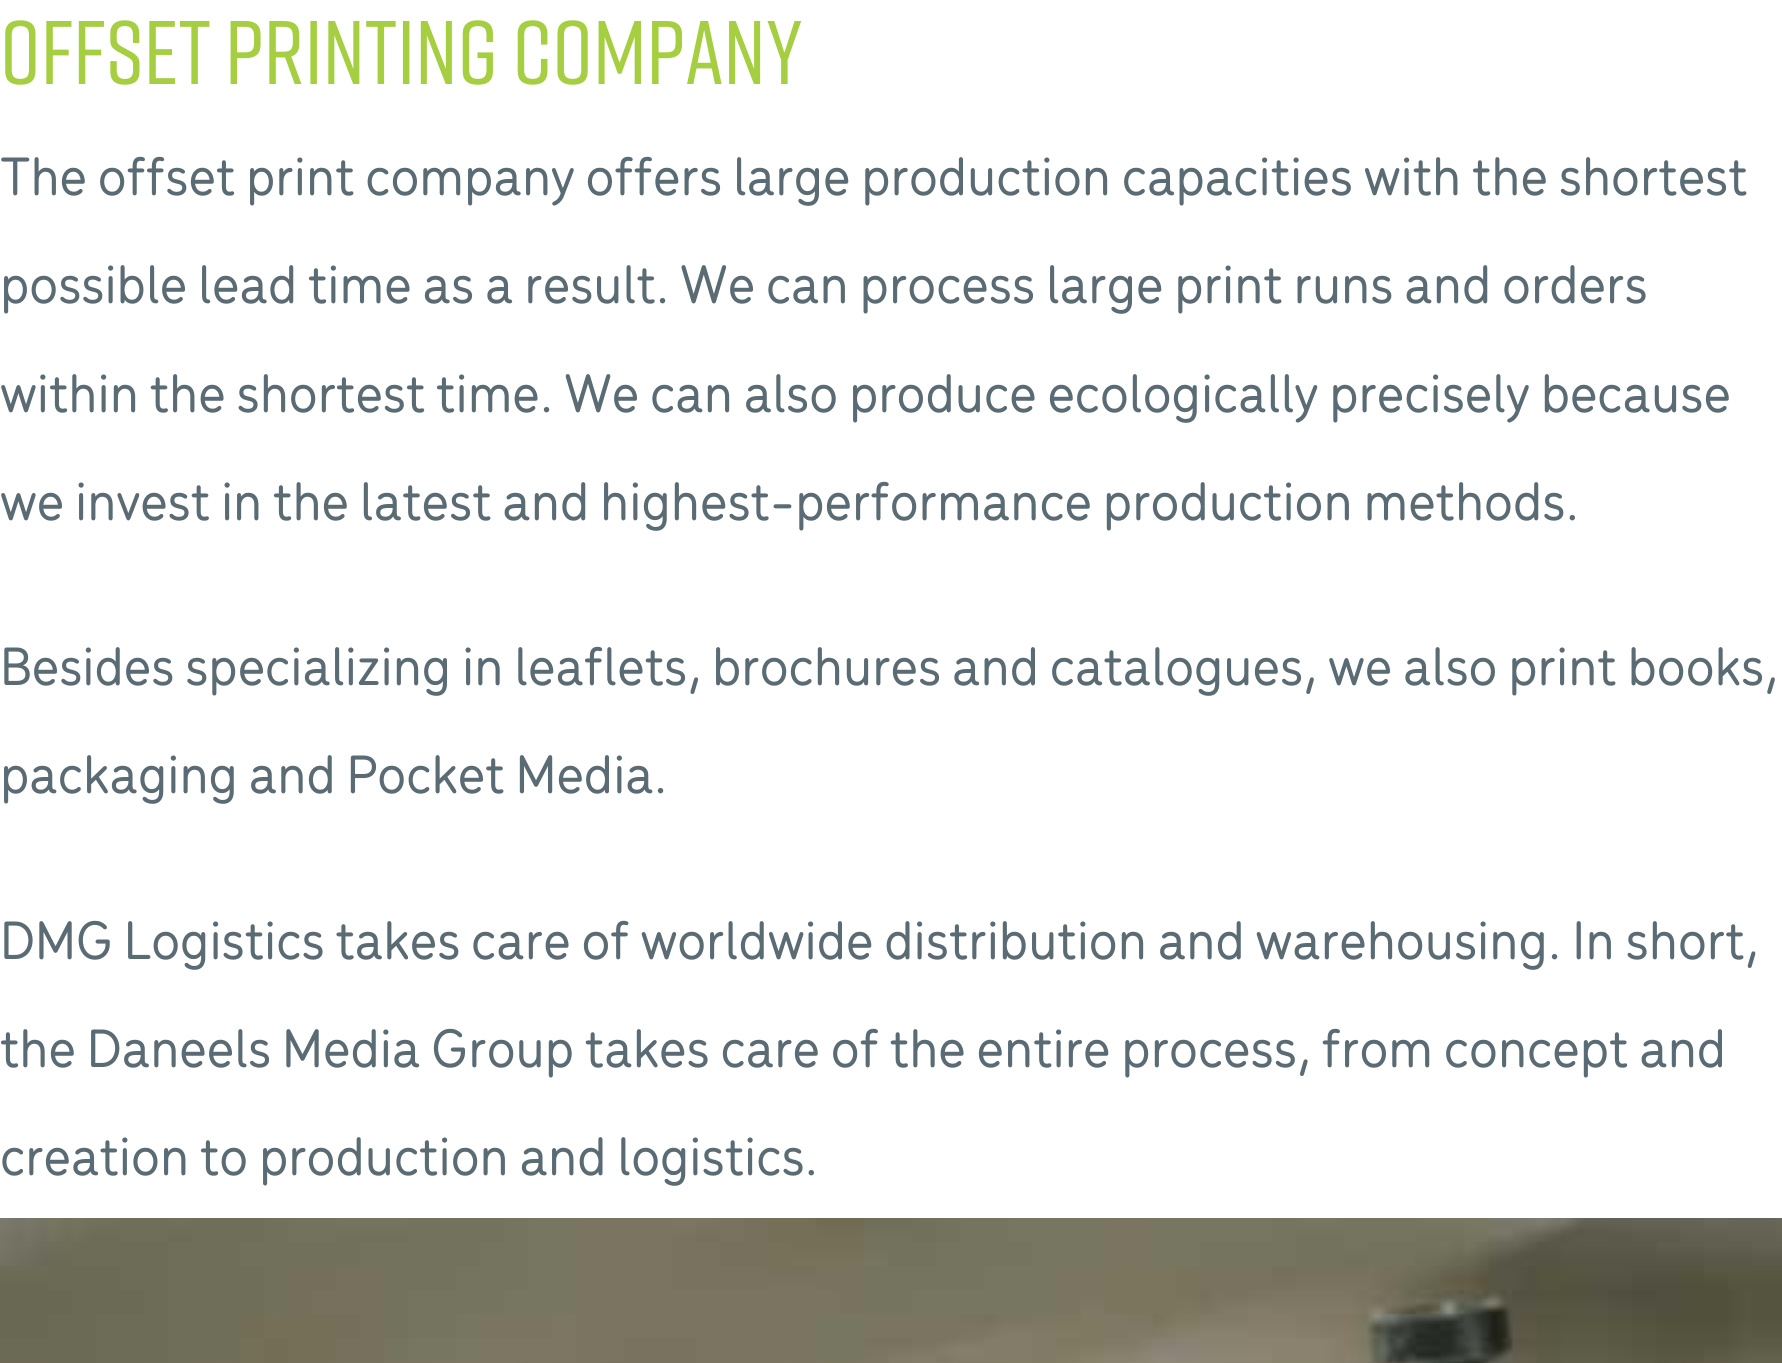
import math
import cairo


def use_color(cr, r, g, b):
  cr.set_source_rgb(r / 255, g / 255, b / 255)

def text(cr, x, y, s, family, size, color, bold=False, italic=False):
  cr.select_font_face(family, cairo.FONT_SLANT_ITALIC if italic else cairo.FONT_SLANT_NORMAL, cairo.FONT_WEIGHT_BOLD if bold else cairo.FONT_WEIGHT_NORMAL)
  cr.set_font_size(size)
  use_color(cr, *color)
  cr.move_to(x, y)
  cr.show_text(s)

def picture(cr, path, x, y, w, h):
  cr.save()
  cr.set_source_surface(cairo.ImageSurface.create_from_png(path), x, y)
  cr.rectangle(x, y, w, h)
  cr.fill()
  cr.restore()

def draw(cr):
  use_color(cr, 255, 255, 255)
  cr.paint()
  picture(cr, "img_01.png", 0, 1218, 1782, 145)
  text(cr, 0, 84, "Offset printing company", "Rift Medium", 90, (165, 206, 65))
  text(cr, 0, 195, "The offset print company offers large production capacities with the shortest", "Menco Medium", 57, (90, 107, 116))
  text(cr, 0, 303, "possible lead time as a result. We can process large print runs and orders", "Menco Medium", 57, (90, 107, 116))
  text(cr, 0, 412, "within the shortest time. We can also produce ecologically precisely because", "Menco Medium", 57, (90, 107, 116))
  text(cr, 0, 520, "we invest in the latest and highest-performance production methods.", "Menco Medium", 57, (90, 107, 116))
  text(cr, 0, 685, "Besides specializing in leaflets, brochures and catalogues, we also print books,", "Menco Medium", 57, (90, 107, 116))
  text(cr, 0, 793, "packaging and Pocket Media.", "Menco Medium", 57, (90, 107, 116))
  text(cr, 0, 959, "DMG Logistics takes care of worldwide distribution and warehousing. In short,", "Menco Medium", 57, (90, 107, 116))
  text(cr, 0, 1067, "the Daneels Media Group takes care of the entire process, from concept and", "Menco Medium", 57, (90, 107, 116))
  text(cr, 0, 1175, "creation to production and logistics.", "Menco Medium", 57, (90, 107, 116))


surface = cairo.ImageSurface(cairo.FORMAT_RGB24, 1782, 1363)
cr = cairo.Context(surface)
options = cairo.FontOptions()
options.set_hint_metrics(cairo.HINT_METRICS_OFF)
options.set_hint_style(cairo.HINT_STYLE_NONE)
cr.set_font_options(options)
cr.set_miter_limit(4)
draw(cr)
surface.write_to_png("out.png")
